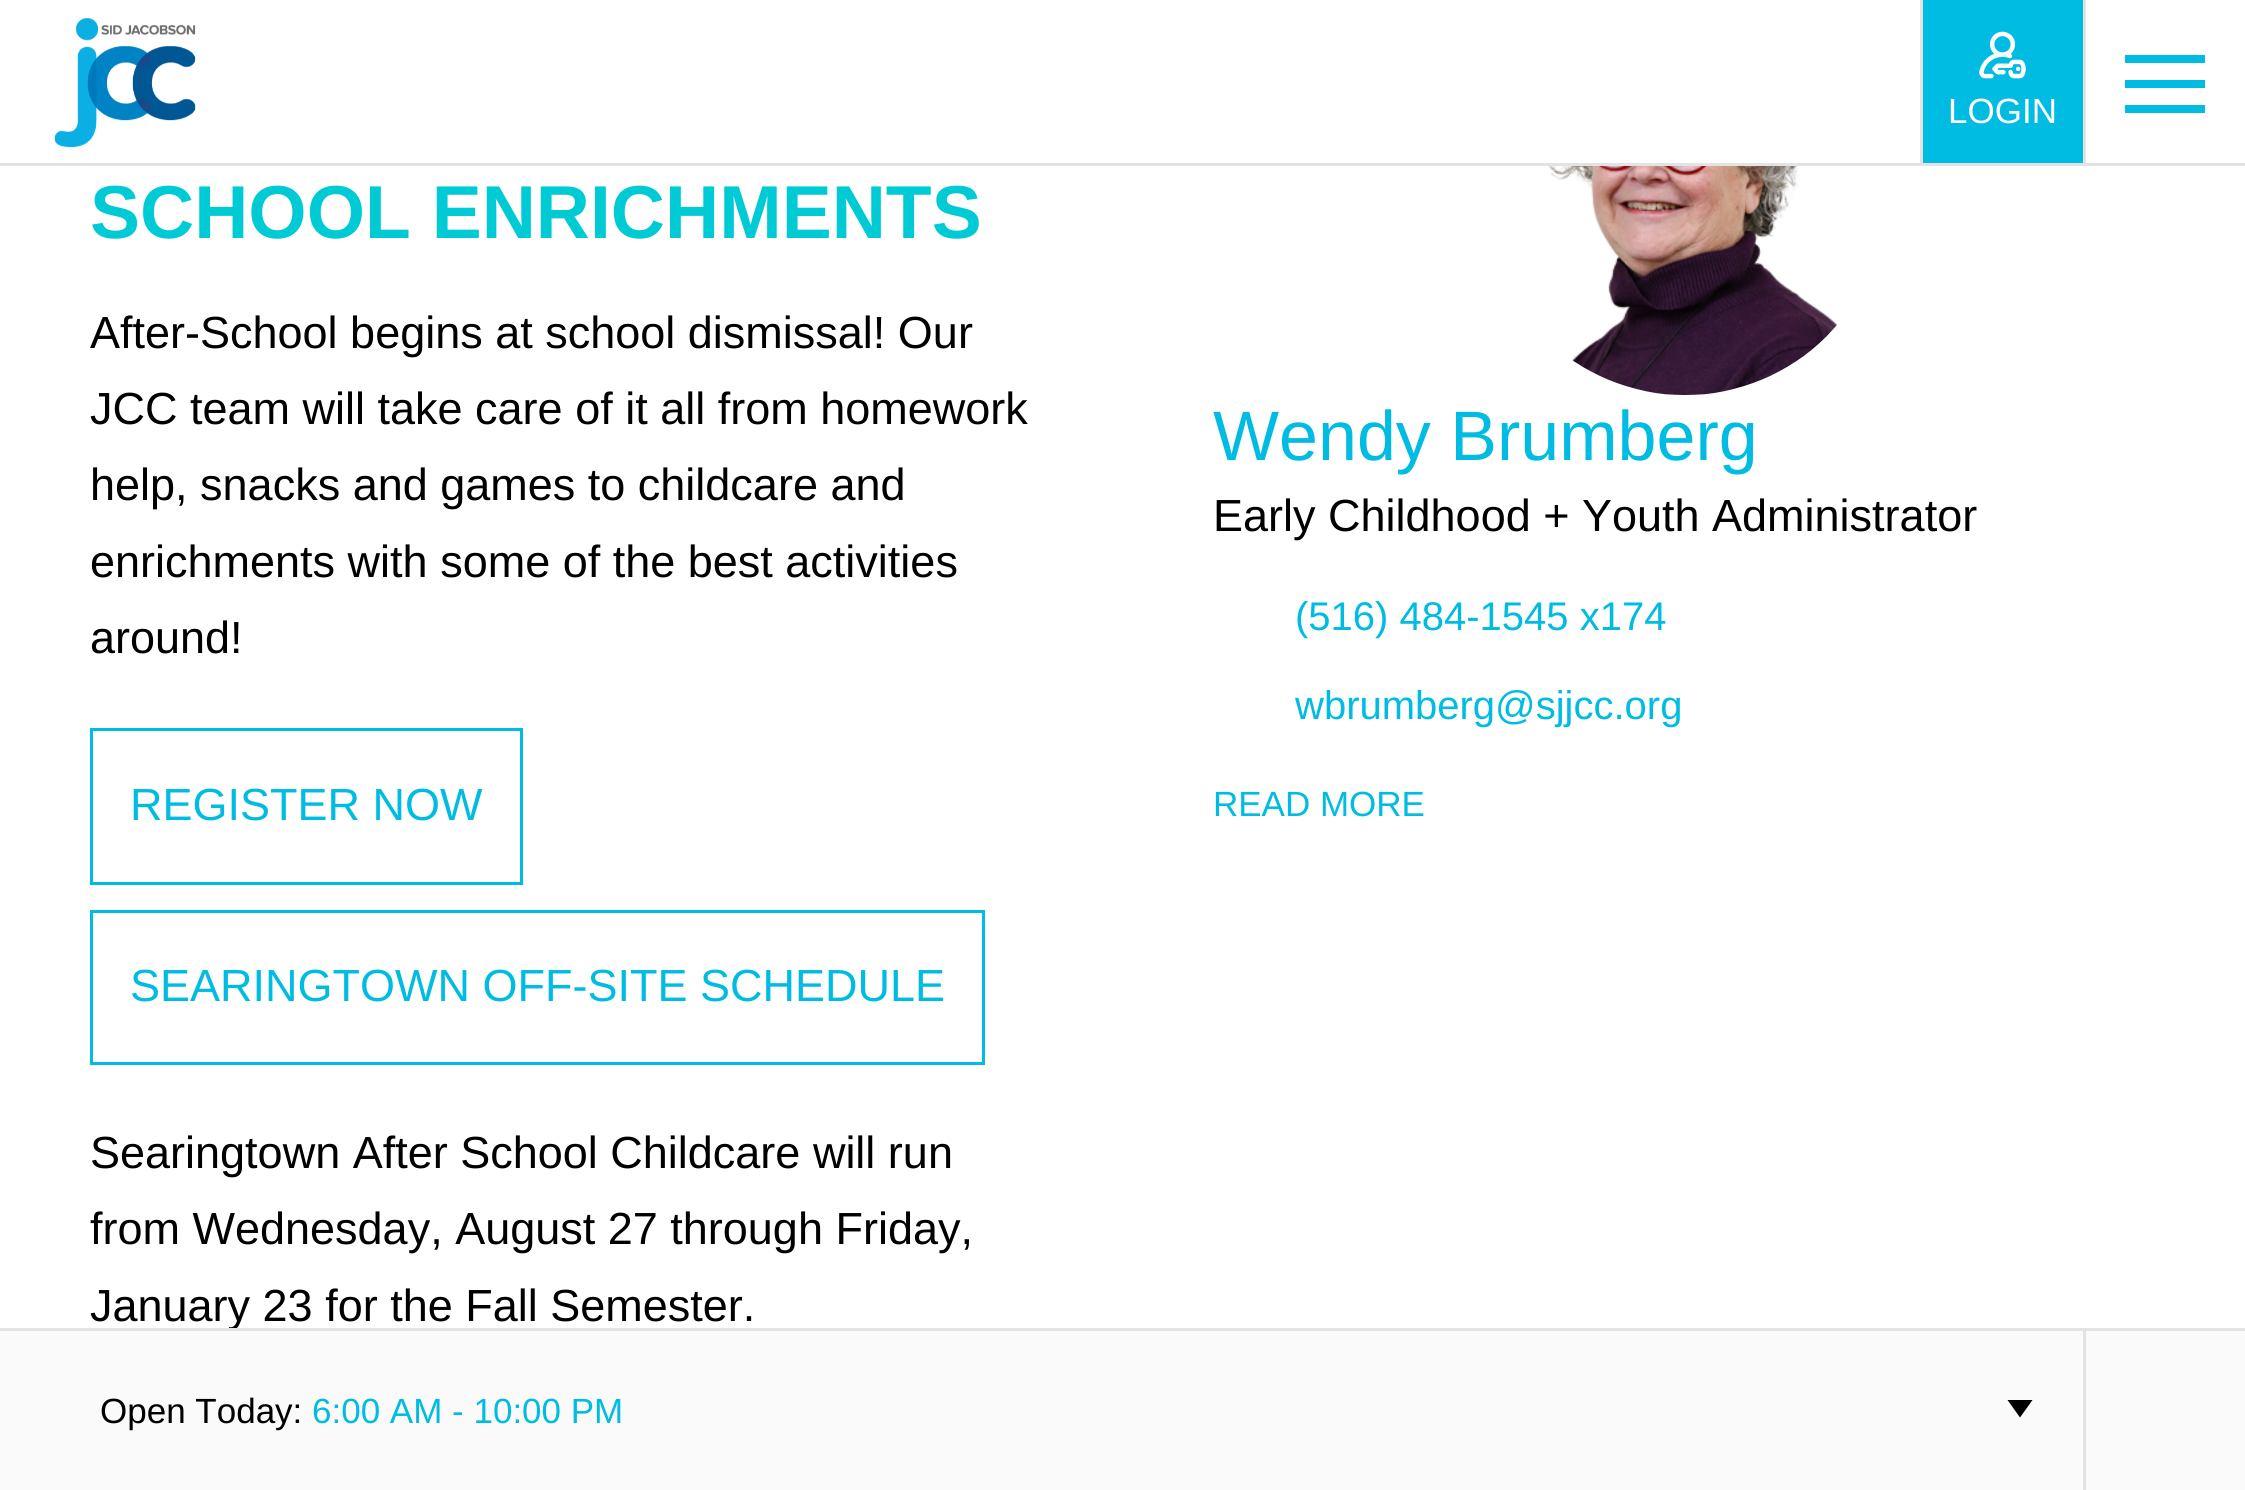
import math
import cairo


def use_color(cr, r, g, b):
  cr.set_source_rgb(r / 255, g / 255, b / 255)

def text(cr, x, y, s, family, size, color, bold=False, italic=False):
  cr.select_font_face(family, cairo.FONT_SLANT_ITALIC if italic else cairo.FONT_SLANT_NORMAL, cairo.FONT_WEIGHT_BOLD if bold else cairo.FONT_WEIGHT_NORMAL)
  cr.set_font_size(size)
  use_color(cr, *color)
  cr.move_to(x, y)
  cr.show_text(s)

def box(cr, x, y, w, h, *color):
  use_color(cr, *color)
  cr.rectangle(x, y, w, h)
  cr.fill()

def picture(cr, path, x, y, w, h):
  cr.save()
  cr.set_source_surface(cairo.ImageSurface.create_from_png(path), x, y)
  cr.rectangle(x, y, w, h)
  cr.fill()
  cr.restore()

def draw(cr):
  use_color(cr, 255, 255, 255)
  cr.paint()
  box(cr, 0, 163, 2245, 3, 227, 227, 227)
  picture(cr, "img_01.png", 54, 18, 142, 130)
  box(cr, 1923, 0, 160, 163, 0, 188, 227)
  box(cr, 1920, 0, 3, 163, 227, 227, 227)
  picture(cr, "img_02.png", 1979, 31, 47, 48)
  box(cr, 2083, 0, 3, 163, 227, 227, 227)
  box(cr, 2125, 55, 80, 8, 0, 188, 227)
  box(cr, 2125, 80, 80, 8, 0, 188, 227)
  box(cr, 2125, 105, 80, 8, 0, 188, 227)
  cr.rectangle(91.5, 729.5, 430, 154)
  cr.set_line_width(3)
  cr.stroke()
  cr.rectangle(91.5, 911.5, 892, 152)
  cr.stroke()
  picture(cr, "img_03.png", 1547, 166, 291, 229)
  box(cr, 0, 1331, 2245, 159, 250, 250, 250)
  use_color(cr, 0, 0, 0)
  cr.new_path()
  cr.move_to(2007.5, 1400)
  cr.line_to(2032.5, 1400)
  cr.line_to(2020, 1417.5)
  cr.close_path()
  cr.fill()
  text(cr, 1948, 123, "LOGIN", "Liberation Sans", 35, (255, 255, 255))
  text(cr, 90, 238, "SCHOOL ENRICHMENTS", "Liberation Sans", 75, (0, 203, 213), bold=True)
  text(cr, 90, 348, "After-School begins at school dismissal! Our", "Liberation Sans", 45, (0, 0, 0))
  text(cr, 90, 424, "JCC team will take care of it all from homework", "Liberation Sans", 45, (0, 0, 0))
  text(cr, 90, 500, "help, snacks and games to childcare and", "Liberation Sans", 45, (0, 0, 0))
  text(cr, 90, 577, "enrichments with some of the best activities", "Liberation Sans", 45, (0, 0, 0))
  text(cr, 90, 653, "around!", "Liberation Sans", 45, (0, 0, 0))
  text(cr, 130, 820, "REGISTER NOW", "Liberation Sans", 45, (0, 188, 227))
  text(cr, 130, 1001, "SEARINGTOWN OFF-SITE SCHEDULE", "Liberation Sans", 45, (0, 188, 227))
  text(cr, 90, 1168, "Searingtown After School Childcare will run", "Liberation Sans", 45, (0, 0, 0))
  text(cr, 90, 1244, "from Wednesday, August 27 through Friday,", "Liberation Sans", 45, (0, 0, 0))
  text(cr, 90, 1321, "January 23 for the Fall Semester.", "Liberation Sans", 45, (0, 0, 0))
  text(cr, 1213, 460, "Wendy Brumberg", "Liberation Sans", 70, (0, 188, 227))
  text(cr, 1213, 531, "Early Childhood + Youth Administrator", "Liberation Sans", 45, (0, 0, 0))
  text(cr, 1295, 630, "(516) 484-1545 x174", "Liberation Sans", 40, (0, 188, 227))
  text(cr, 1295, 719, "wbrumberg@sjjcc.org", "Liberation Sans", 40, (0, 188, 227))
  text(cr, 1213, 816, "READ MORE", "Liberation Sans", 35, (0, 188, 227))
  box(cr, 0, 1328, 2245, 3, 227, 227, 227)
  box(cr, 2083, 1330, 3, 160, 227, 227, 227)
  text(cr, 100, 1423, "Open Today:", "Liberation Sans", 35, (0, 0, 0))
  text(cr, 312, 1423, "6:00 AM - 10:00 PM", "Liberation Sans", 35, (0, 188, 227))


surface = cairo.ImageSurface(cairo.FORMAT_RGB24, 2245, 1490)
cr = cairo.Context(surface)
options = cairo.FontOptions()
options.set_hint_metrics(cairo.HINT_METRICS_OFF)
options.set_hint_style(cairo.HINT_STYLE_NONE)
cr.set_font_options(options)
cr.set_miter_limit(4)
draw(cr)
surface.write_to_png("out.png")
